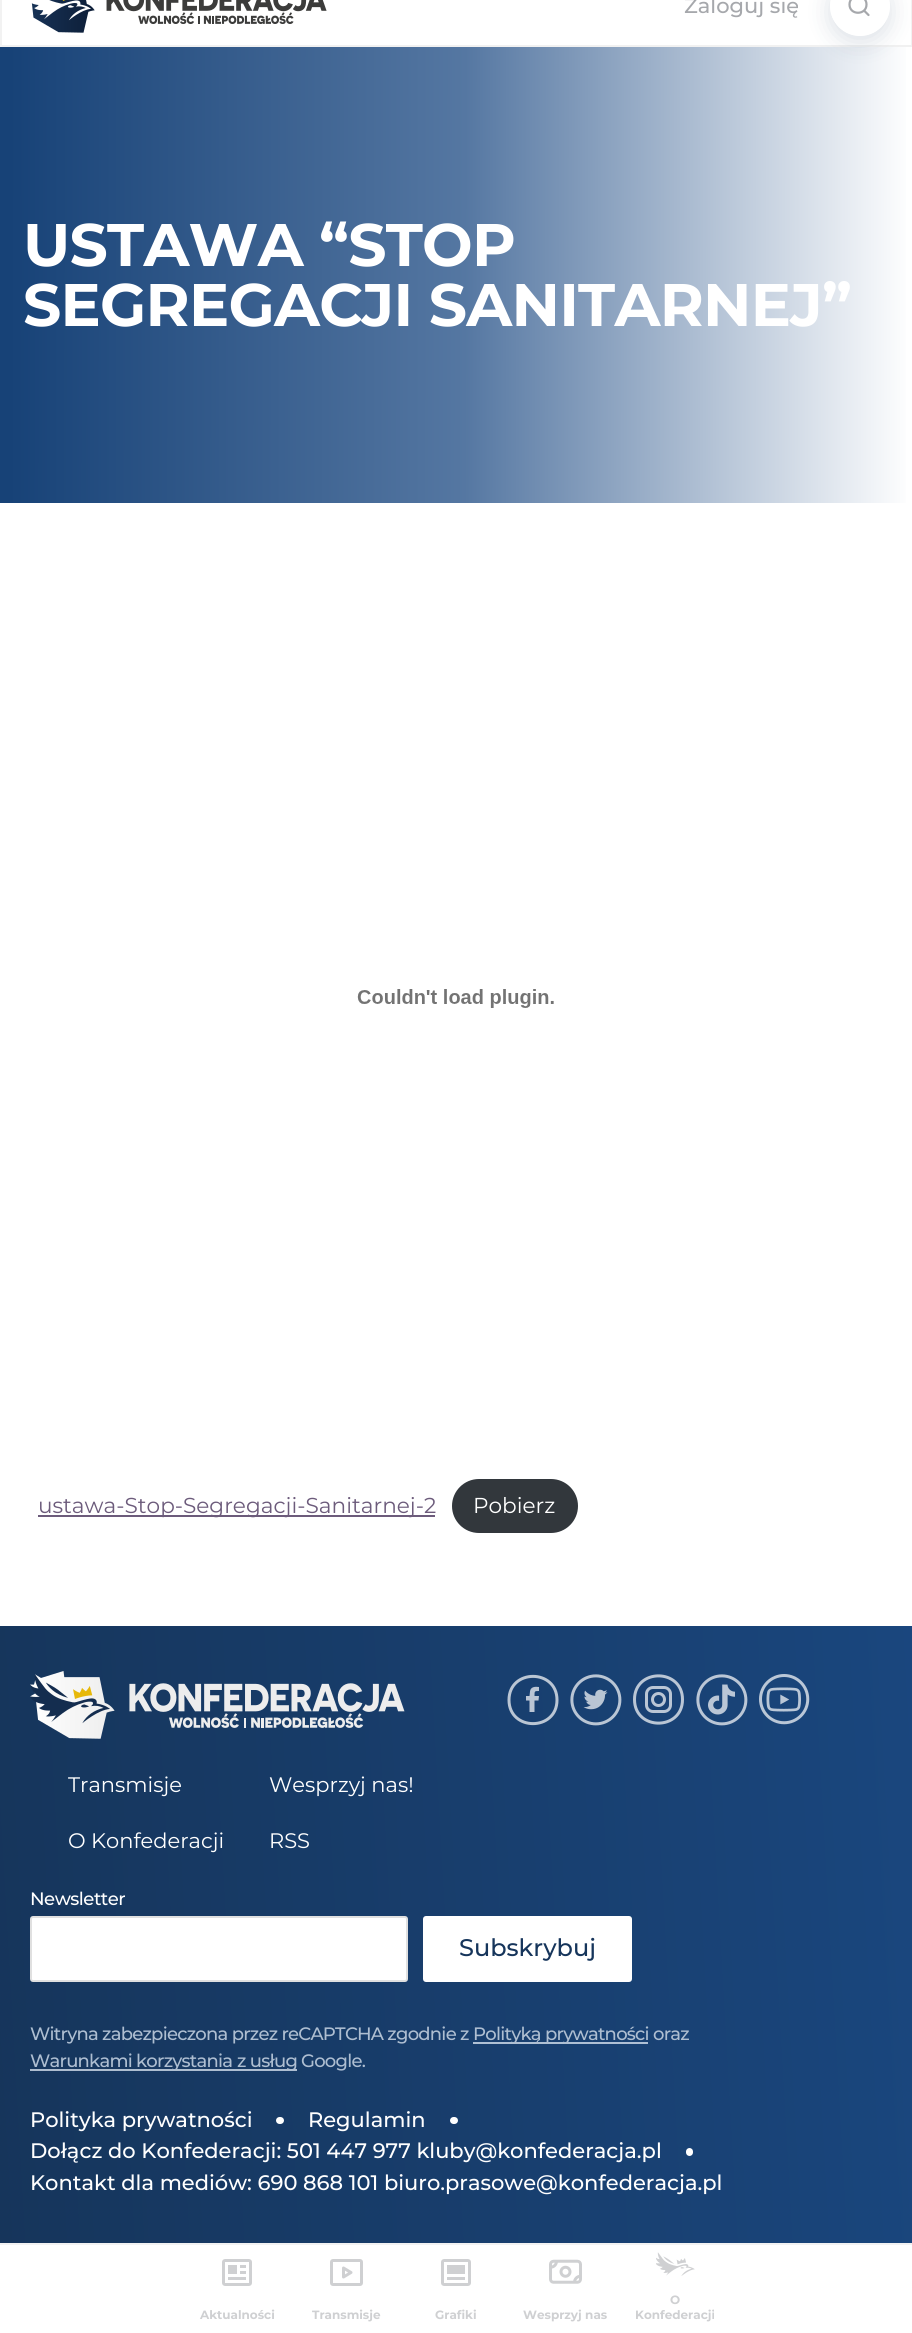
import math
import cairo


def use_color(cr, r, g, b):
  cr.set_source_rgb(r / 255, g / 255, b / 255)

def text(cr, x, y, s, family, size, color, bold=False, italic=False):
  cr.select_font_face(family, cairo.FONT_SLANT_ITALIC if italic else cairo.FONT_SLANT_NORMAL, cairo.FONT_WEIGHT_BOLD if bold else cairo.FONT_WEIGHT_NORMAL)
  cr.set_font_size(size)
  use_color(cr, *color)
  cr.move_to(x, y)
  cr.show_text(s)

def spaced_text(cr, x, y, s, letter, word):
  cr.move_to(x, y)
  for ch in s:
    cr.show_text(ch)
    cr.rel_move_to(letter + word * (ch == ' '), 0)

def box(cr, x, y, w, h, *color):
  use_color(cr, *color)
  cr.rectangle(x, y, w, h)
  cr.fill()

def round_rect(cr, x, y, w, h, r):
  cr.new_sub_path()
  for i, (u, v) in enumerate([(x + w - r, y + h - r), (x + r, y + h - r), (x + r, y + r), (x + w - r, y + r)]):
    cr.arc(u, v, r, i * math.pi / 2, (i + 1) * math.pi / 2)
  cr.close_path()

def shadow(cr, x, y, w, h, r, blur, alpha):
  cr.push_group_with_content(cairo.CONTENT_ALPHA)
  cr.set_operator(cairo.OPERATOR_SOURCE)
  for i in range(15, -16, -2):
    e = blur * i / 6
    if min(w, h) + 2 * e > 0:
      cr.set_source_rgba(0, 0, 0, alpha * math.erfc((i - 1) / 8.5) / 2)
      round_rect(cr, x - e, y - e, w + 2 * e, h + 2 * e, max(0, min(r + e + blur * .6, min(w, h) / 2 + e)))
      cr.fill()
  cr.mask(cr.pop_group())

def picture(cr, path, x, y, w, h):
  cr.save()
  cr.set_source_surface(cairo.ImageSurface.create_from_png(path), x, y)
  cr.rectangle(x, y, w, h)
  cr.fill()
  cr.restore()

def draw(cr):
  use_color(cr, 255, 255, 255)
  cr.paint()
  box(cr, 911, 0, 1, 47, 242, 242, 242)
  box(cr, 0, 45, 912, 2, 241, 241, 241)
  box(cr, 0, 0, 2, 47, 242, 242, 242)
  picture(cr, "img_01.png", 31, 0, 296, 33)
  cr.new_path()
  cr.move_to(868.5, 15)
  cr.line_to(864, 10.5)
  cr.move_to(866.5, 4.5)
  cr.curve_to(866.5, 15.5, 849.5, 15.5, 849.5, 4.5)
  cr.curve_to(849.5, -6.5, 866.5, -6.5, 866.5, 4.5)
  cr.close_path()
  use_color(cr, 166, 168, 172)
  cr.set_line_width(2.2)
  cr.set_line_cap(cairo.LINE_CAP_ROUND)
  cr.stroke()
  gradient = cairo.LinearGradient(912, 275, -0.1, 274)
  gradient.add_color_stop_rgba(0, 1, 1, 1, 1)
  gradient.add_color_stop_rgba(0.49, 0.333, 0.467, 0.635, 1)
  gradient.add_color_stop_rgba(0.99, 0.09, 0.259, 0.467, 1)
  cr.set_source(gradient)
  cr.rectangle(0, 47, 906, 456)
  cr.fill()
  cr.save()
  cr.set_fill_rule(cairo.FILL_RULE_EVEN_ODD)
  cr.new_path()
  cr.move_to(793, 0)
  cr.line_to(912, 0)
  cr.line_to(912, 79)
  cr.line_to(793, 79)
  cr.close_path()
  cr.move_to(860, -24)
  cr.curve_to(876.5, -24, 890, -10.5, 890, 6)
  cr.curve_to(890, 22.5, 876.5, 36, 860, 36)
  cr.curve_to(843.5, 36, 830, 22.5, 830, 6)
  cr.curve_to(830, -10.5, 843.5, -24, 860, -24)
  cr.close_path()
  cr.clip()
  use_color(cr, 22, 53, 91)
  shadow(cr, 830, -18, 60, 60, 30, 12, 0.15)
  cr.restore()
  picture(cr, "img_02.png", 357, 989, 197, 19)
  box(cr, 38, 1515, 397, 2, 108, 91, 123)
  use_color(cr, 50, 55, 60)
  round_rect(cr, 452, 1479, 126, 54, 27)
  cr.fill()
  gradient = cairo.LinearGradient(-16, 1962, 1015, 1903)
  gradient.add_color_stop_rgba(0, 0.086, 0.208, 0.357, 1)
  gradient.add_color_stop_rgba(1, 0.102, 0.282, 0.506, 1)
  cr.set_source(gradient)
  cr.rectangle(0, 1626, 912, 617)
  cr.fill()
  gradient = cairo.LinearGradient(-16, 1962, 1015, 1903)
  gradient.add_color_stop_rgba(0, 0.682, 0.741, 0.808, 1)
  gradient.add_color_stop_rgba(1, 0.686, 0.761, 0.851, 1)
  cr.set_source(gradient)
  cr.rectangle(137, 2069, 100, 2)
  cr.fill()
  cr.rectangle(30, 2069, 107, 2)
  cr.fill()
  cr.rectangle(545, 2042, 103, 2)
  cr.fill()
  picture(cr, "img_03.png", 30, 1671, 375, 68)
  cr.new_path()
  cr.move_to(557, 1700)
  cr.curve_to(557, 1731.5, 509, 1731.5, 509, 1700)
  cr.curve_to(509, 1668.5, 557, 1668.5, 557, 1700)
  cr.close_path()
  use_color(cr, 186, 198, 212)
  cr.set_line_width(3)
  cr.set_line_cap(cairo.LINE_CAP_BUTT)
  cr.stroke()
  use_color(cr, 186, 197, 212)
  cr.new_path()
  cr.move_to(539, 1687)
  cr.line_to(539, 1691)
  cr.curve_to(534.5, 1691, 534.5, 1691, 534.5, 1696)
  cr.line_to(539, 1696)
  cr.line_to(538.5, 1700.5)
  cr.line_to(534.5, 1700.5)
  cr.line_to(534.5, 1712)
  cr.line_to(529.5, 1712)
  cr.line_to(529.5, 1700.5)
  cr.line_to(526, 1700.5)
  cr.line_to(526, 1696)
  cr.line_to(529.5, 1696)
  cr.line_to(530, 1691.5)
  cr.curve_to(530.5, 1686.5, 535.5, 1686.5, 539, 1687)
  cr.close_path()
  cr.fill()
  picture(cr, "img_04.png", 570, 1674, 52, 52)
  cr.new_path()
  cr.move_to(682.5, 1699.5)
  cr.curve_to(682.5, 1731, 634.5, 1731, 634.5, 1699.5)
  cr.curve_to(634.5, 1668, 682.5, 1668, 682.5, 1699.5)
  cr.close_path()
  use_color(cr, 186, 198, 213)
  cr.stroke()
  cr.arc(658.5, 1699.5, 6, 0, 2 * math.pi)
  cr.stroke()
  round_rect(cr, 646.5, 1687.5, 24, 24, 6.5)
  cr.stroke()
  picture(cr, "img_05.png", 696, 1674, 52, 52)
  picture(cr, "img_06.png", 759, 1674, 51, 51)
  use_color(cr, 255, 255, 255)
  round_rect(cr, 31, 1917, 376, 64, 2)
  cr.fill_preserve()
  use_color(cr, 224, 224, 224)
  cr.set_line_width(2)
  cr.stroke()
  use_color(cr, 255, 255, 255)
  round_rect(cr, 423, 1916, 209, 66, 3)
  cr.fill()
  box(cr, 473, 2042, 72, 2, 175, 192, 212)
  box(cr, 237, 2069, 60, 2, 174, 190, 209)
  use_color(cr, 255, 255, 255)
  round_rect(cr, 276, 2117, 8, 7, 3.5)
  cr.fill()
  round_rect(cr, 450, 2117, 8, 7, 3.5)
  cr.fill()
  round_rect(cr, 686, 2148, 7, 8, 3.5)
  cr.fill()
  box(cr, 0, 2243, 912, 2, 242, 242, 242)
  picture(cr, "img_07.png", 222, 2259, 30, 27)
  round_rect(cr, 331.5, 2260.5, 30, 24, 1.5)
  use_color(cr, 207, 208, 210)
  cr.set_line_width(3)
  cr.stroke()
  cr.new_path()
  cr.move_to(351, 2272.5)
  cr.line_to(343.5, 2268)
  cr.line_to(343.5, 2277)
  cr.close_path()
  cr.set_line_cap(cairo.LINE_CAP_ROUND)
  cr.set_line_join(cairo.LINE_JOIN_ROUND)
  cr.stroke()
  picture(cr, "img_08.png", 441, 2259, 30, 27)
  picture(cr, "img_09.png", 549, 2259, 33, 25)
  picture(cr, "img_10.png", 656, 2252, 39, 24)
  text(cr, 684, 13, "Zaloguj się", "Montserrat Medium", 21, (166, 168, 172))
  cr.select_font_face("Montserrat", cairo.FONT_SLANT_NORMAL, cairo.FONT_WEIGHT_BOLD)
  cr.set_font_size(60)
  use_color(cr, 255, 255, 255)
  spaced_text(cr, 23, 266, "USTAWA “STOP", -0.75, 0)
  spaced_text(cr, 23, 326, "SEGREGACJI SANITARNEJ”", -0.75, 0)
  text(cr, 38, 1513, "ustawa-Stop-Segregacji-Sanitarnej-2", "Montserrat", 21.6, (108, 91, 123))
  text(cr, 473, 1513, "Pobierz", "Montserrat", 21.6, (255, 255, 255))
  text(cr, 68, 1792, "Transmisje", "Montserrat", 21, (255, 255, 255))
  text(cr, 68, 1848, "O Konfederacji", "Montserrat", 21, (255, 255, 255))
  text(cr, 269, 1792, "Wesprzyj nas!", "Montserrat", 21, (255, 255, 255))
  text(cr, 269, 1848, "RSS", "Montserrat", 21, (255, 255, 255))
  cr.select_font_face("Montserrat Medium")
  cr.set_font_size(18)
  spaced_text(cr, 30, 1905, "Newsletter", -0.5, 0)
  text(cr, 459, 1956, "Subskrybuj", "Montserrat Medium", 24, (22, 53, 91))
  cr.set_font_size(18)
  use_color(cr, 174, 190, 209)
  spaced_text(cr, 30, 2040, "Witryna zabezpieczona przez reCAPTCHA zgodnie z", -0.75, 0)
  spaced_text(cr, 473, 2040, "Polityką", -0.75, 0)
  spaced_text(cr, 545, 2040, "prywatności oraz", -0.75, 0)
  spaced_text(cr, 30, 2067, "Warunkami", -0.75, 0)
  spaced_text(cr, 136, 2067, "korzystania", -0.75, 0)
  spaced_text(cr, 237, 2067, "z usług", -0.75, 0)
  spaced_text(cr, 301, 2067, "Google.", -0.75, 0)
  text(cr, 30, 2127, "Polityka prywatności", "Montserrat Medium", 21, (255, 255, 255))
  text(cr, 308, 2127, "Regulamin", "Montserrat Medium", 21, (255, 255, 255))
  text(cr, 30, 2158, "Dołącz do Konfederacji: 501 447 977 kluby@konfederacja.pl", "Montserrat Medium", 21, (255, 255, 255))
  text(cr, 30, 2190, "Kontakt dla mediów: 690 868 101 biuro.prasowe@konfederacja.pl", "Montserrat Medium", 21, (255, 255, 255))
  text(cr, 200, 2319, "Aktualności", "Montserrat", 12, (207, 208, 210), bold=True)
  text(cr, 312, 2319, "Transmisje", "Montserrat", 12, (207, 208, 210), bold=True)
  text(cr, 435, 2319, "Grafiki", "Montserrat", 12, (207, 208, 210), bold=True)
  text(cr, 523, 2319, "Wesprzyj nas", "Montserrat", 12, (207, 208, 210), bold=True)
  text(cr, 670, 2304, "O", "Montserrat", 12, (207, 208, 210), bold=True)
  text(cr, 635, 2319, "Konfederacji", "Montserrat", 12, (207, 208, 210), bold=True)


surface = cairo.ImageSurface(cairo.FORMAT_RGB24, 912, 2333)
cr = cairo.Context(surface)
options = cairo.FontOptions()
options.set_hint_metrics(cairo.HINT_METRICS_OFF)
options.set_hint_style(cairo.HINT_STYLE_NONE)
cr.set_font_options(options)
cr.set_miter_limit(4)
draw(cr)
surface.write_to_png("out.png")
